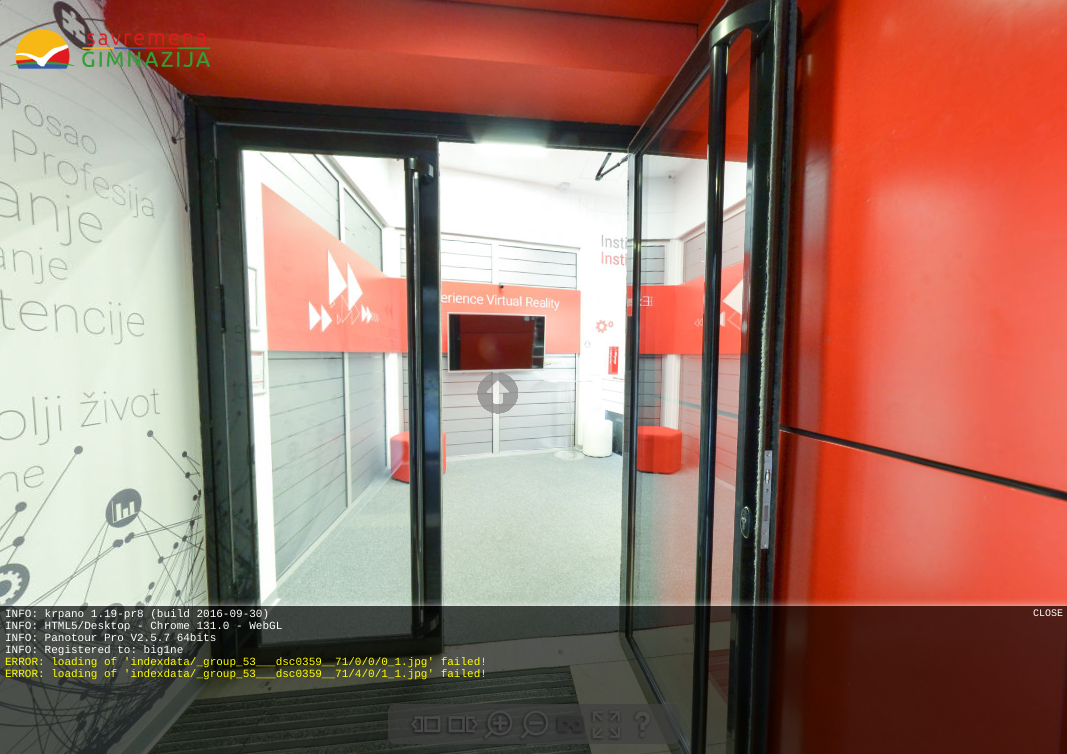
import math
import cairo


def use_color(cr, r, g, b):
  cr.set_source_rgb(r / 255, g / 255, b / 255)

def text(cr, x, y, s, family, size, color, bold=False, italic=False):
  cr.select_font_face(family, cairo.FONT_SLANT_ITALIC if italic else cairo.FONT_SLANT_NORMAL, cairo.FONT_WEIGHT_BOLD if bold else cairo.FONT_WEIGHT_NORMAL)
  cr.set_font_size(size)
  use_color(cr, *color)
  cr.move_to(x, y)
  cr.show_text(s)

def round_rect(cr, x, y, w, h, r):
  cr.new_sub_path()
  for i, (u, v) in enumerate([(x + w - r, y + h - r), (x + r, y + h - r), (x + r, y + r), (x + w - r, y + r)]):
    cr.arc(u, v, r, i * math.pi / 2, (i + 1) * math.pi / 2)
  cr.close_path()

def shadow(cr, x, y, w, h, r, blur, alpha):
  cr.push_group_with_content(cairo.CONTENT_ALPHA)
  cr.set_operator(cairo.OPERATOR_SOURCE)
  for i in range(15, -16, -2):
    e = blur * i / 6
    if min(w, h) + 2 * e > 0:
      cr.set_source_rgba(0, 0, 0, alpha * math.erfc((i - 1) / 8.5) / 2)
      round_rect(cr, x - e, y - e, w + 2 * e, h + 2 * e, max(0, min(r + e + blur * .6, min(w, h) / 2 + e)))
      cr.fill()
  cr.mask(cr.pop_group())

def picture(cr, path, x, y, w, h):
  cr.save()
  cr.set_source_surface(cairo.ImageSurface.create_from_png(path), x, y)
  cr.rectangle(x, y, w, h)
  cr.fill()
  cr.restore()

def draw(cr):
  use_color(cr, 255, 255, 255)
  cr.paint()
  picture(cr, "img_01.png", 0, 0, 1067, 754)
  picture(cr, "img_02.png", 10, 29, 200, 41)
  picture(cr, "img_03.png", 388, 704, 10, 10)
  cr.set_source_rgba(0.757, 0.757, 0.757, 0.7)
  cr.rectangle(398, 704, 272, 10)
  cr.fill()
  picture(cr, "img_04.png", 670, 704, 10, 10)
  cr.rectangle(388, 714, 10, 20)
  cr.fill()
  cr.rectangle(398, 714, 272, 20)
  cr.fill()
  cr.rectangle(670, 714, 10, 20)
  cr.fill()
  picture(cr, "img_05.png", 388, 734, 10, 10)
  cr.rectangle(398, 734, 272, 10)
  cr.fill()
  picture(cr, "img_06.png", 670, 734, 10, 10)
  picture(cr, "img_07.png", 408, 714, 34, 22)
  picture(cr, "img_08.png", 445, 714, 34, 22)
  picture(cr, "img_09.png", 481, 709, 33, 32)
  picture(cr, "img_10.png", 518, 709, 32, 32)
  picture(cr, "img_11.png", 554, 715, 31, 20)
  picture(cr, "img_12.png", 589, 709, 33, 32)
  picture(cr, "img_13.png", 632, 710, 20, 30)
  cr.save()
  cr.rectangle(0, 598, 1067, 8)
  cr.clip()
  use_color(cr, 255, 255, 255)
  shadow(cr, 0, 606, 1067, 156, 0, 4, 0.67)
  cr.restore()
  cr.set_source_rgba(0, 0, 0, 0.67)
  cr.rectangle(0, 606, 1067, 148)
  cr.fill()
  text(cr, 5, 617, "INFO: krpano 1.19-pr8 (build 2016-09-30)", "Liberation Mono", 11, (255, 255, 255))
  text(cr, 5, 629, "INFO: HTML5/Desktop - Chrome 131.0 - WebGL", "Liberation Mono", 11, (255, 255, 255))
  text(cr, 5, 641, "INFO: Panotour Pro V2.5.7 64bits", "Liberation Mono", 11, (255, 255, 255))
  text(cr, 5, 653, "INFO: Registered to: big1ne", "Liberation Mono", 11, (255, 255, 255))
  text(cr, 5, 665, "ERROR: loading of 'indexdata/_group_53___dsc0359__71/0/0/0_1.jpg' failed!", "Liberation Mono", 11, (255, 255, 0))
  text(cr, 5, 677, "ERROR: loading of 'indexdata/_group_53___dsc0359__71/4/0/1_1.jpg' failed!", "Liberation Mono", 11, (255, 255, 0))
  text(cr, 1033, 616, "CLOSE", "Liberation Mono", 10, (255, 255, 255))


surface = cairo.ImageSurface(cairo.FORMAT_RGB24, 1067, 754)
cr = cairo.Context(surface)
options = cairo.FontOptions()
options.set_hint_metrics(cairo.HINT_METRICS_OFF)
options.set_hint_style(cairo.HINT_STYLE_NONE)
cr.set_font_options(options)
cr.set_miter_limit(4)
draw(cr)
surface.write_to_png("out.png")
